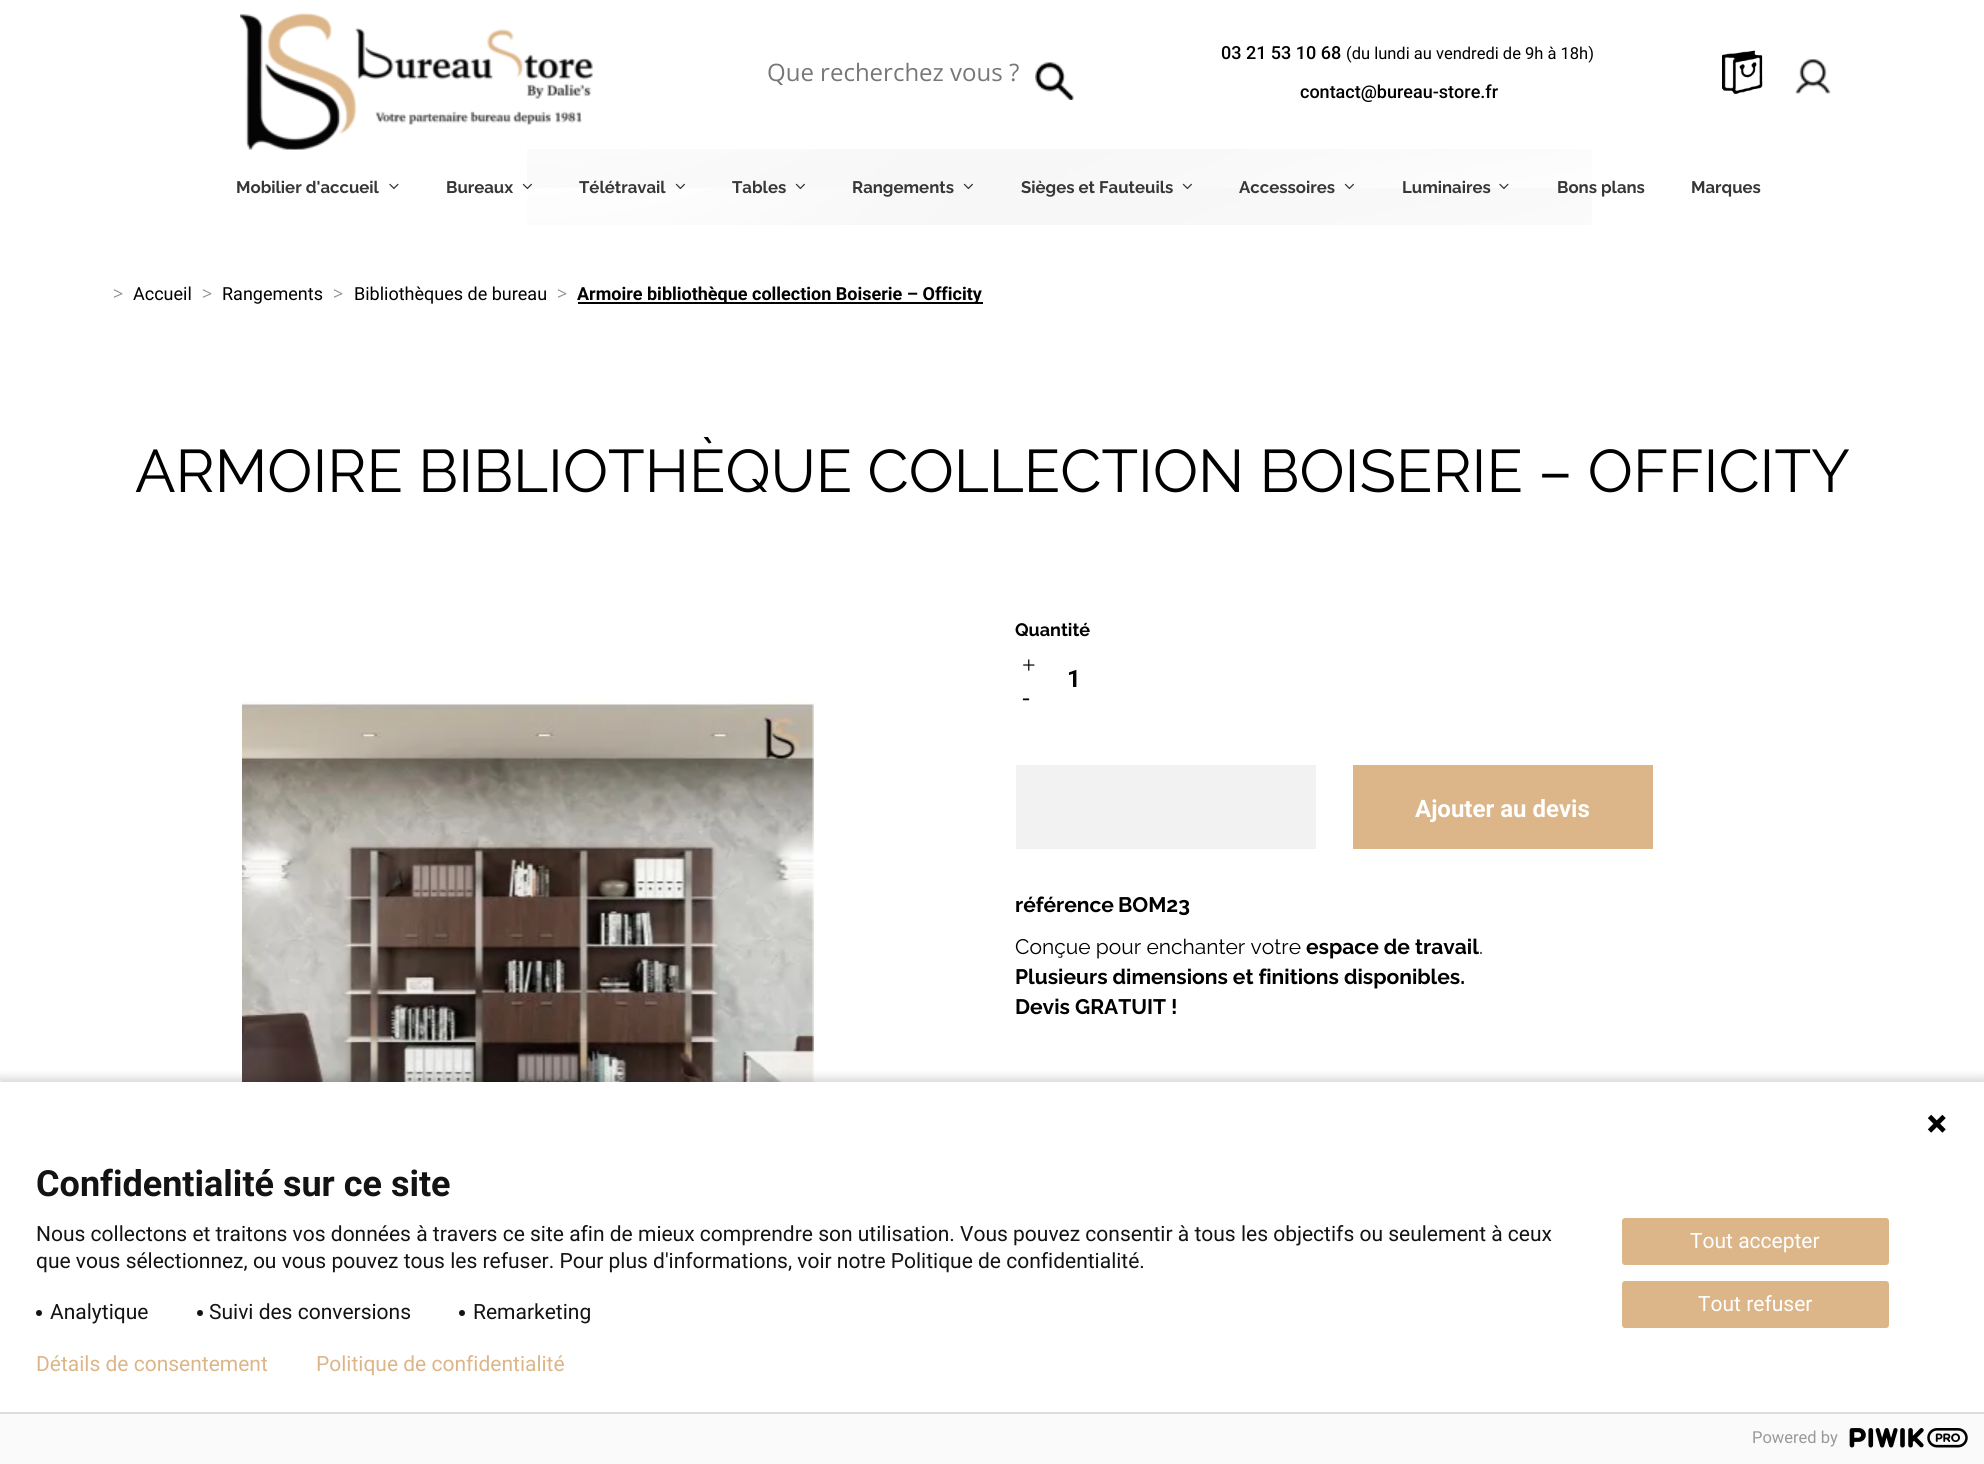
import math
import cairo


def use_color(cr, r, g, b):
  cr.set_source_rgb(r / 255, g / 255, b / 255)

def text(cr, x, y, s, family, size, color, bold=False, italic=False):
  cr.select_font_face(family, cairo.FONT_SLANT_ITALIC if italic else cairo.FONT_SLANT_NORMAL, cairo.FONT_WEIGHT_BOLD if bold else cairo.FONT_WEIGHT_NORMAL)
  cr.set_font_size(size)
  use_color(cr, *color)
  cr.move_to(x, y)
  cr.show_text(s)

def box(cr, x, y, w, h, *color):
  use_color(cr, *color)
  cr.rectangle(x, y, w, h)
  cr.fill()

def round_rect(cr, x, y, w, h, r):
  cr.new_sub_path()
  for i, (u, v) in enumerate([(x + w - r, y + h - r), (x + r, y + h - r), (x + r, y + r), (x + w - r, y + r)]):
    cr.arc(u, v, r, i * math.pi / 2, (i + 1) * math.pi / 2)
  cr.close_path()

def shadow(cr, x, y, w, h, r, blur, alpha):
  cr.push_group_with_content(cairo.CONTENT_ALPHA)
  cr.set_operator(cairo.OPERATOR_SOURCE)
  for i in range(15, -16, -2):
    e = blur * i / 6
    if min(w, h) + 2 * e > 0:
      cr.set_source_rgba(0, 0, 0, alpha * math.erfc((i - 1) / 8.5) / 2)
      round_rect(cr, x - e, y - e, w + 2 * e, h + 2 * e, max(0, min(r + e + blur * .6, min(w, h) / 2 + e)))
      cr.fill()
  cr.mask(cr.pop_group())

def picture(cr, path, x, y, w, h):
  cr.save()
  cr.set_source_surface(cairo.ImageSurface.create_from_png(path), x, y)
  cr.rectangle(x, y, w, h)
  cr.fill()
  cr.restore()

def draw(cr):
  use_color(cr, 255, 255, 255)
  cr.paint()
  picture(cr, "img_05.png", 527, 149, 1065, 76)
  picture(cr, "img_01.png", 240, 13, 353, 137)
  picture(cr, "img_02.png", 1035, 62, 39, 38)
  picture(cr, "img_04.png", 1795, 59, 36, 35)
  picture(cr, "img_03.png", 1722, 50, 74, 45)
  picture(cr, "img_06.png", 389, 183, 10, 7)
  picture(cr, "img_07.png", 522, 183, 10, 7)
  picture(cr, "img_08.png", 675, 183, 10, 7)
  picture(cr, "img_09.png", 795, 183, 10, 7)
  picture(cr, "img_10.png", 963, 183, 10, 7)
  picture(cr, "img_11.png", 1182, 183, 10, 7)
  picture(cr, "img_12.png", 1344, 183, 10, 7)
  picture(cr, "img_13.png", 1499, 183, 10, 7)
  box(cr, 578, 302, 405, 2, 0, 0, 0)
  picture(cr, "img_14.png", 242, 699, 572, 383)
  box(cr, 1016, 765, 300, 84, 242, 242, 242)
  box(cr, 1353, 765, 300, 84, 220, 182, 137)
  use_color(cr, 0, 0, 0)
  shadow(cr, -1, 1077, 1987, 386, 0, 4, 0.14)
  box(cr, 0, 1082, 1984, 330, 255, 255, 255)
  picture(cr, "img_15.png", 1927, 1114, 19, 19)
  use_color(cr, 19, 19, 19)
  cr.arc(39, 1313, 3, 0, 2 * math.pi)
  cr.fill()
  cr.arc(200, 1313, 3, 0, 2 * math.pi)
  cr.fill()
  cr.arc(462, 1313, 3, 0, 2 * math.pi)
  cr.fill()
  use_color(cr, 220, 182, 137)
  round_rect(cr, 1622, 1218, 267, 47, 3)
  cr.fill()
  round_rect(cr, 1622, 1281, 267, 47, 3)
  cr.fill()
  box(cr, 0, 1414, 1984, 50, 250, 250, 250)
  box(cr, 0, 1412, 1984, 2, 221, 221, 221)
  picture(cr, "img_16.png", 1849, 1428, 119, 20)
  text(cr, 767, 81, "Que recherchez vous ?", "Open Sans", 24, (119, 119, 119))
  text(cr, 1221, 59, "03 21 53 10 68", "Roboto Medium", 18, (0, 0, 0))
  text(cr, 1346, 59, "(du lundi au vendredi de 9h à 18h)", "Roboto", 16.5, (0, 0, 0))
  text(cr, 1300, 98, "contact@bureau-store.fr", "Roboto Medium", 18, (0, 0, 0))
  text(cr, 236, 193, "Mobilier d'accueil", "Raleway", 16.75, (54, 56, 53), bold=True)
  text(cr, 446, 193, "Bureaux", "Raleway", 16.75, (54, 56, 53), bold=True)
  text(cr, 579, 193, "Télétravail", "Raleway", 16.75, (54, 56, 53), bold=True)
  text(cr, 732, 193, "Tables", "Raleway", 16.75, (54, 56, 53), bold=True)
  text(cr, 852, 193, "Rangements", "Raleway", 16.75, (54, 56, 53), bold=True)
  text(cr, 1021, 193, "Sièges et Fauteuils", "Raleway", 16.75, (54, 56, 53), bold=True)
  text(cr, 1239, 193, "Accessoires", "Raleway", 16.75, (54, 56, 53), bold=True)
  text(cr, 1402, 193, "Luminaires", "Raleway", 16.75, (54, 56, 53), bold=True)
  text(cr, 1557, 193, "Bons plans", "Raleway", 16.75, (54, 56, 53), bold=True)
  text(cr, 1691, 193, "Marques", "Raleway", 16.75, (54, 56, 53), bold=True)
  text(cr, 113, 300, ">", "Open Sans", 18, (143, 143, 143))
  text(cr, 133, 300, "Accueil", "Roboto", 18, (0, 0, 0))
  text(cr, 202, 300, ">", "Open Sans", 18, (143, 143, 143))
  text(cr, 222, 300, "Rangements", "Roboto", 18, (0, 0, 0))
  text(cr, 333, 300, ">", "Open Sans", 18, (143, 143, 143))
  text(cr, 354, 300, "Bibliothèques de bureau", "Roboto", 18, (0, 0, 0))
  text(cr, 557, 300, ">", "Open Sans", 18, (143, 143, 143))
  text(cr, 577, 300, "Armoire bibliothèque collection Boiserie – Officity", "Roboto", 18, (0, 0, 0), bold=True)
  text(cr, 135, 492, "ARMOIRE BIBLIOTHÈQUE COLLECTION BOISERIE – OFFICITY", "Raleway", 60, (0, 0, 0))
  text(cr, 1015, 636, "Quantité", "Raleway", 18, (0, 0, 0), bold=True)
  text(cr, 1022, 673, "+", "Liberation Serif", 24, (0, 0, 0))
  text(cr, 1022, 705, "-", "Liberation Serif", 24, (0, 0, 0))
  text(cr, 1067, 687, "1", "Roboto", 24, (0, 0, 0), bold=True)
  text(cr, 1415, 817, "Ajouter au devis", "Roboto", 24, (255, 255, 255), bold=True)
  text(cr, 1015, 912, "référence", "Raleway", 21, (0, 0, 0), bold=True)
  text(cr, 1118, 912, "BOM23", "Raleway", 21, (0, 0, 0), bold=True)
  text(cr, 1015, 954, "Conçue pour enchanter votre", "Raleway", 21, (0, 0, 0))
  text(cr, 1306, 954, "espace de travail", "Raleway", 21, (0, 0, 0), bold=True)
  text(cr, 1479, 954, ".", "Raleway", 21, (0, 0, 0))
  text(cr, 1015, 984, "Plusieurs dimensions et finitions disponibles.", "Raleway", 21, (0, 0, 0), bold=True)
  text(cr, 1015, 1014, "Devis GRATUIT !", "Raleway", 21, (0, 0, 0), bold=True)
  text(cr, 36, 1196, "Confidentialité sur ce site", "Roboto", 36, (19, 19, 19), bold=True)
  text(cr, 36, 1241, "Nous collectons et traitons vos données à travers ce site afin de mieux comprendre son utilisation. Vous pouvez consentir à tous les objectifs ou seulement à ceux", "Roboto", 21, (19, 19, 19))
  text(cr, 36, 1268, "que vous sélectionnez, ou vous pouvez tous les refuser. Pour plus d'informations, voir notre Politique de confidentialité.", "Roboto", 21, (19, 19, 19))
  text(cr, 50, 1319, "Analytique", "Roboto", 21, (19, 19, 19))
  text(cr, 209, 1319, "Suivi des conversions", "Roboto", 21, (19, 19, 19))
  text(cr, 473, 1319, "Remarketing", "Roboto", 21, (19, 19, 19))
  text(cr, 1690, 1248, "Tout accepter", "Roboto", 21, (255, 255, 255))
  text(cr, 1698, 1311, "Tout refuser", "Roboto", 21, (255, 255, 255))
  text(cr, 36, 1371, "Détails de consentement", "Roboto", 21, (220, 182, 137))
  text(cr, 316, 1371, "Politique de confidentialité", "Roboto", 21, (220, 182, 137))
  text(cr, 1752, 1443, "Powered by", "Roboto", 16.5, (153, 153, 153))


surface = cairo.ImageSurface(cairo.FORMAT_RGB24, 1984, 1464)
cr = cairo.Context(surface)
options = cairo.FontOptions()
options.set_hint_metrics(cairo.HINT_METRICS_OFF)
options.set_hint_style(cairo.HINT_STYLE_NONE)
cr.set_font_options(options)
cr.set_miter_limit(4)
draw(cr)
surface.write_to_png("out.png")
